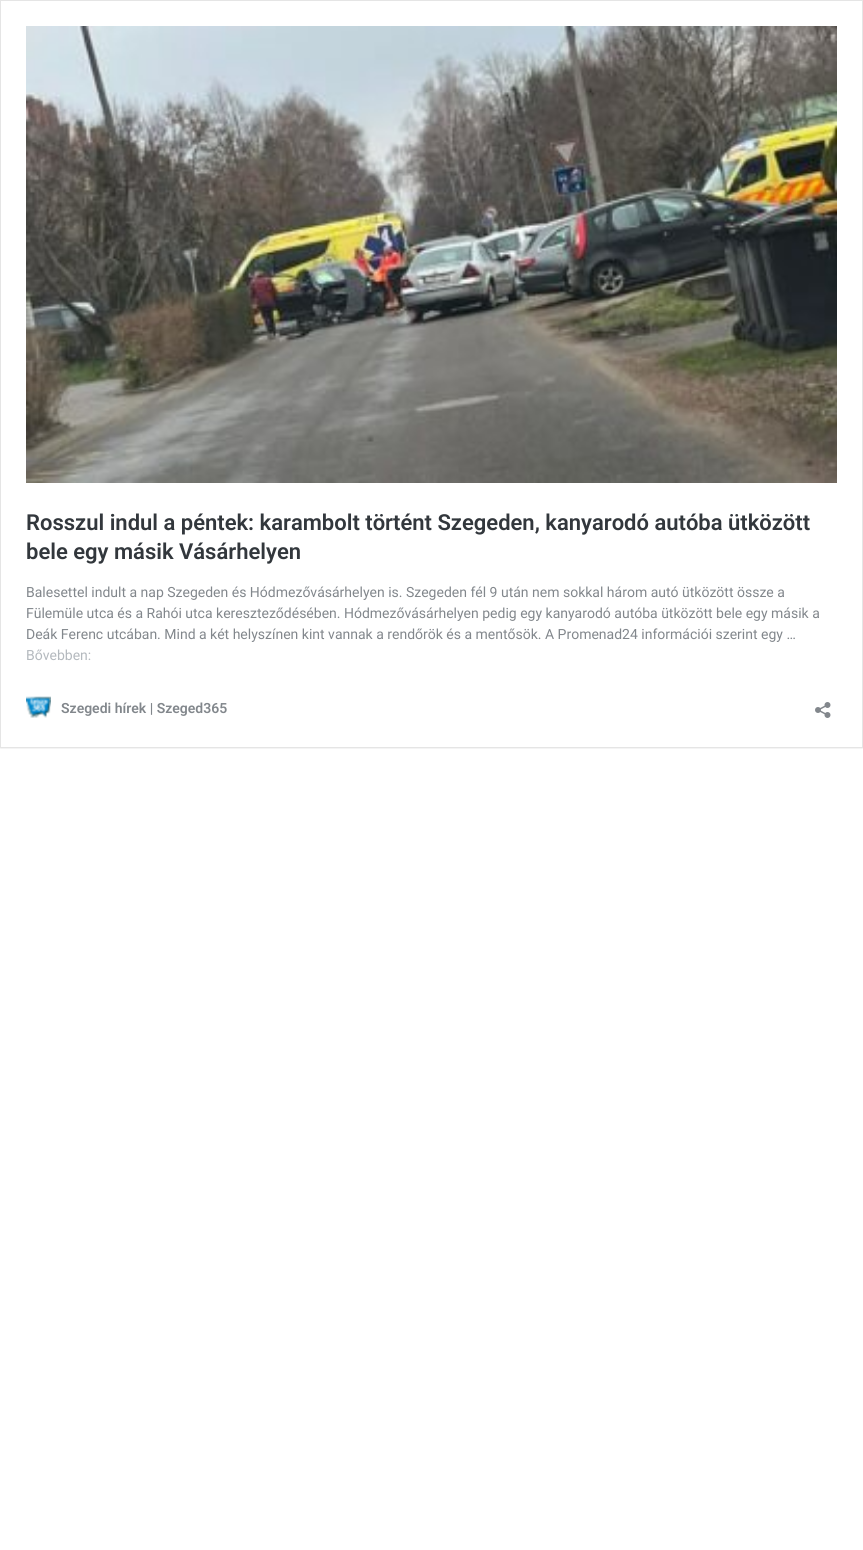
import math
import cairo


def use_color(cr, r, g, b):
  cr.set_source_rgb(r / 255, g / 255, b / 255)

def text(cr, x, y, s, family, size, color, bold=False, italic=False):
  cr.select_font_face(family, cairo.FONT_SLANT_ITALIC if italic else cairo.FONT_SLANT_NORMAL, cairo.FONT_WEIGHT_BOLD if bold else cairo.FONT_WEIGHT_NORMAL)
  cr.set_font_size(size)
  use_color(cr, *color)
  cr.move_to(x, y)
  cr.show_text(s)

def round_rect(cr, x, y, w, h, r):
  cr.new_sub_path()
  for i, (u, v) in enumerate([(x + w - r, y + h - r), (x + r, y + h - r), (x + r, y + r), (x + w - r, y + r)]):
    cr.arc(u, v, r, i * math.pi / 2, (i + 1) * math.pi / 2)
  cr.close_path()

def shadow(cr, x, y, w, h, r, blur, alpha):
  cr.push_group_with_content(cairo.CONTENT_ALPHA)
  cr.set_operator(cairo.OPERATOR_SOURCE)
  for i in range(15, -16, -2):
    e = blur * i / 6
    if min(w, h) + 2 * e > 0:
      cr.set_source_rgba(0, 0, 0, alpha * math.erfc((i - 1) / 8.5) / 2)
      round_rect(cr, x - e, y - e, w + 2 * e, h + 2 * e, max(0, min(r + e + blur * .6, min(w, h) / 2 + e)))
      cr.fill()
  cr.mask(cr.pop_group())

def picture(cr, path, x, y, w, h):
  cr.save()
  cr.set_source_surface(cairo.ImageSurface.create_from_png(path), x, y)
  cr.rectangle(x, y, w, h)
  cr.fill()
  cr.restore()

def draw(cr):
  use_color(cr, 255, 255, 255)
  cr.paint()
  cr.save()
  cr.rectangle(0, 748, 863, 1)
  cr.clip()
  use_color(cr, 0, 0, 0)
  shadow(cr, 0, 1, 863, 748, 0, 0.5, 0.05)
  cr.restore()
  cr.rectangle(0.5, 0.5, 862, 747)
  use_color(cr, 229, 229, 229)
  cr.set_line_width(1)
  cr.stroke()
  picture(cr, "img_01.png", 26, 26, 811, 457)
  picture(cr, "img_02.png", 26, 696, 25, 22)
  picture(cr, "img_03.png", 815, 702, 16, 16)
  text(cr, 26, 530, "Rosszul indul a péntek: karambolt történt Szegeden, kanyarodó autóba ütközött", "Roboto SemiBold", 22, (50, 55, 60))
  text(cr, 26, 559, "bele egy másik Vásárhelyen", "Roboto SemiBold", 22, (50, 55, 60))
  text(cr, 26, 597, "Balesettel indult a nap Szegeden és Hódmezővásárhelyen is. Szegeden fél 9 után nem sokkal három autó ütközött össze a", "Roboto", 14, (130, 135, 140))
  text(cr, 26, 618, "Fülemüle utca és a Rahói utca kereszteződésében. Hódmezővásárhelyen pedig egy kanyarodó autóba ütközött bele egy másik a", "Roboto", 14, (130, 135, 140))
  text(cr, 26, 639, "Deák Ferenc utcában. Mind a két helyszínen kint vannak a rendőrök és a mentősök. A Promenad24 információi szerint egy …", "Roboto", 14, (130, 135, 140))
  text(cr, 26, 660, "Bővebben:", "Roboto", 14, (180, 185, 190))
  text(cr, 61, 713, "Szegedi hírek | Szeged365", "Roboto SemiBold", 14, (130, 135, 140))


surface = cairo.ImageSurface(cairo.FORMAT_RGB24, 863, 1550)
cr = cairo.Context(surface)
options = cairo.FontOptions()
options.set_hint_metrics(cairo.HINT_METRICS_OFF)
options.set_hint_style(cairo.HINT_STYLE_NONE)
cr.set_font_options(options)
cr.set_miter_limit(4)
draw(cr)
surface.write_to_png("out.png")
